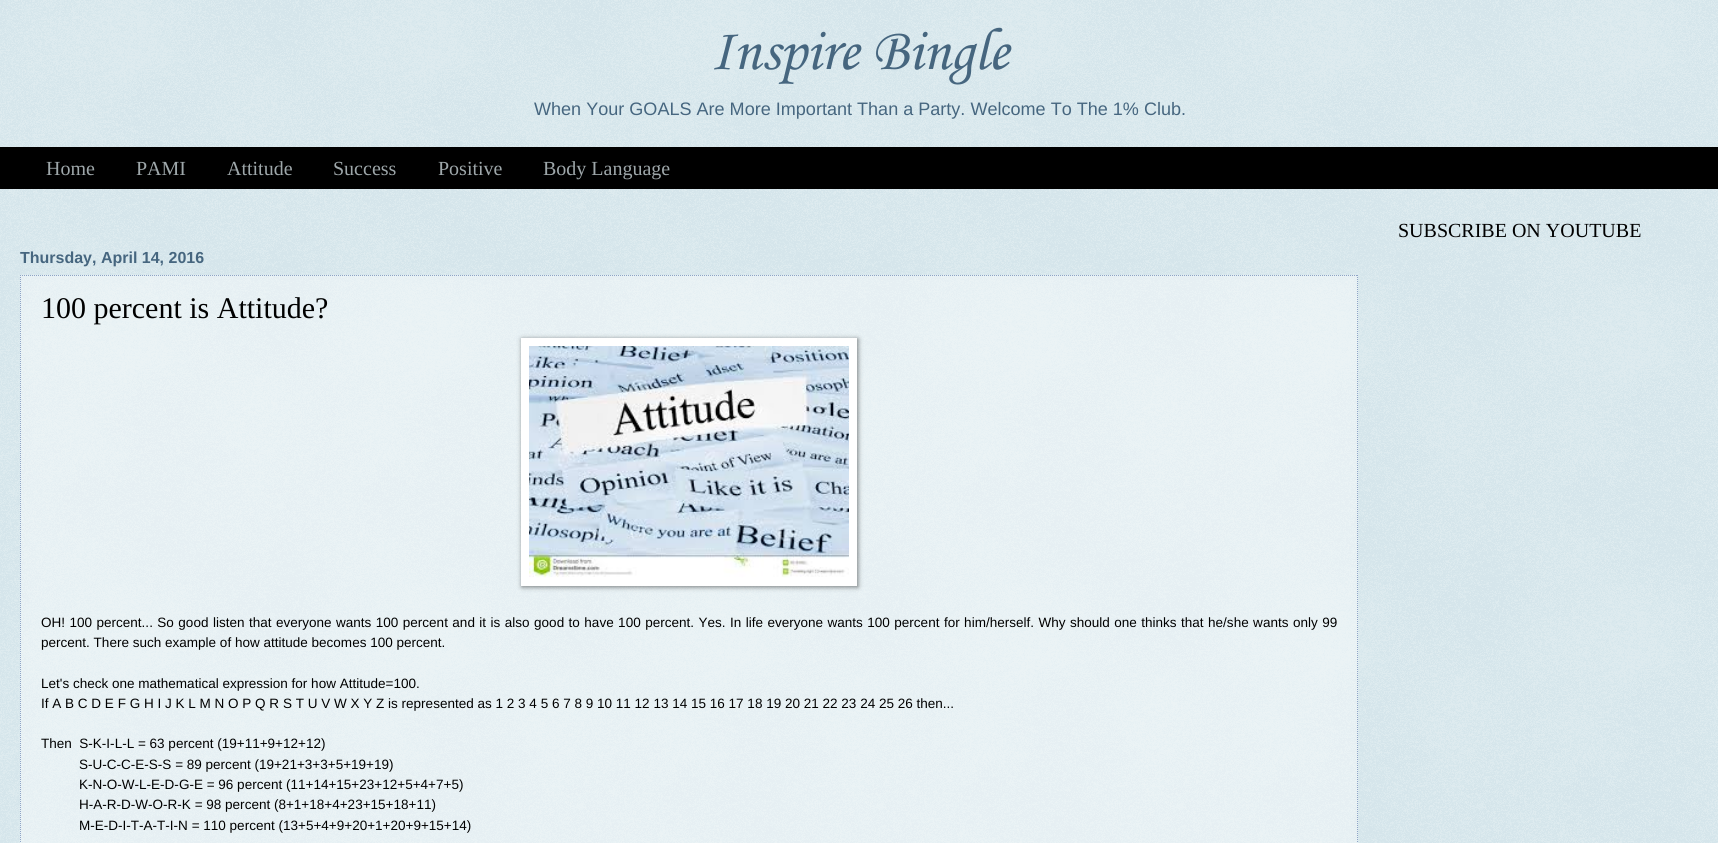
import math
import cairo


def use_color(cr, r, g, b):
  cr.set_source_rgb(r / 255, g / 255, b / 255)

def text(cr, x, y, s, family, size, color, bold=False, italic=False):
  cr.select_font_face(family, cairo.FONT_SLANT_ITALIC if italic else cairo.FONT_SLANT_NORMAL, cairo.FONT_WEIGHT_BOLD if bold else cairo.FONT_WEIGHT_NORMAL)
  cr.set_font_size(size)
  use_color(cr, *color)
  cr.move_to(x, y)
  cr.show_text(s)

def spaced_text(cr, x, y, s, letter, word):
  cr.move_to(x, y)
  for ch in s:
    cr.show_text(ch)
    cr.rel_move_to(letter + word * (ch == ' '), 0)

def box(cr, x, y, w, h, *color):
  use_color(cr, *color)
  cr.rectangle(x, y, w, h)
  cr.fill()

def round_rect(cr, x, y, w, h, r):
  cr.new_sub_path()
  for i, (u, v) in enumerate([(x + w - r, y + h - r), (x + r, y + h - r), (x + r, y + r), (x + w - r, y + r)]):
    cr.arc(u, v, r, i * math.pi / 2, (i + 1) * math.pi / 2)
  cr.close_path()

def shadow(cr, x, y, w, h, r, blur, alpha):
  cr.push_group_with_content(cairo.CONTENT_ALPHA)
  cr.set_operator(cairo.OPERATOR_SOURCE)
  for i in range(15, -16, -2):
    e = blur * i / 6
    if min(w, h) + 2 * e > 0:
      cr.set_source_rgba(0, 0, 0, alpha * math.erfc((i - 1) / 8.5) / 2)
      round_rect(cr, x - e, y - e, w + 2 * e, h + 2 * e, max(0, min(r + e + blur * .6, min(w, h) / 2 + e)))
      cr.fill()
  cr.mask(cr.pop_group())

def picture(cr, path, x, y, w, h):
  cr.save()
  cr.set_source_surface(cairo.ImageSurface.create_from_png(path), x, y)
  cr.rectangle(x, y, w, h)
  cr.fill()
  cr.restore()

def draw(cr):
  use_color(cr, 182, 211, 221)
  cr.paint()
  picture(cr, "img_01.png", 0, 0, 1718, 843)
  box(cr, 0, 147, 1718, 42, 0, 0, 0)
  cr.set_source_rgba(1, 1, 1, 0.4)
  cr.rectangle(20, 275, 1338, 568)
  cr.fill()
  cr.new_path()
  cr.move_to(20, 275.5)
  cr.line_to(1358, 275.5)
  use_color(cr, 142, 164, 198)
  cr.set_line_width(1)
  cr.set_dash([1, 1])
  cr.stroke()
  cr.new_path()
  cr.move_to(1357.5, 275)
  cr.line_to(1357.5, 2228)
  cr.stroke()
  cr.new_path()
  cr.move_to(20.5, 275)
  cr.line_to(20.5, 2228)
  cr.stroke()
  use_color(cr, 0, 0, 0)
  shadow(cr, 522, 339, 336, 248, 0, 2.5, 0.5)
  box(cr, 521, 338, 336, 248, 255, 255, 255)
  picture(cr, "img_02.png", 529, 346, 320, 232)
  text(cr, 710, 69, "Inspire Bingle", "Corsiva", 60, (70, 102, 127))
  text(cr, 534, 115, "When Your GOALS Are More Important Than a Party. Welcome To The 1% Club.", "Liberation Sans", 18.05, (70, 102, 127))
  text(cr, 46, 175, "Home", "Liberation Serif", 20, (158, 167, 170))
  text(cr, 136, 175, "PAMI", "Liberation Serif", 20, (158, 167, 170))
  text(cr, 227, 175, "Attitude", "Liberation Serif", 20, (158, 167, 170))
  text(cr, 333, 175, "Success", "Liberation Serif", 20, (158, 167, 170))
  text(cr, 438, 175, "Positive", "Liberation Serif", 20, (158, 167, 170))
  text(cr, 543, 175, "Body Language", "Liberation Serif", 20, (158, 167, 170))
  text(cr, 1398, 237, "SUBSCRIBE ON YOUTUBE", "Liberation Serif", 20, (0, 0, 0))
  text(cr, 20, 263, "Thursday, April 14, 2016", "Liberation Sans", 16, (70, 102, 127), bold=True)
  text(cr, 41, 318, "100 percent is Attitude?", "Liberation Serif", 30, (0, 0, 0))
  cr.select_font_face("Liberation Sans")
  cr.set_font_size(13.52)
  spaced_text(cr, 41, 627, "OH! 100 percent... So good listen that everyone wants 100 percent and it is also good to have 100 percent. Yes. In life everyone wants 100 percent for him/herself. Why should one thinks that he/she wants only 99", 0, 0.7)
  text(cr, 41, 647, "percent. There such example of how attitude becomes 100 percent.", "Liberation Sans", 13.52, (0, 0, 0))
  text(cr, 41, 688, "Let's check one mathematical expression for how Attitude=100.", "Liberation Sans", 13.52, (0, 0, 0))
  text(cr, 41, 708, "If A B C D E F G H I J K L M N O P Q R S T U V W X Y Z is represented as 1 2 3 4 5 6 7 8 9 10 11 12 13 14 15 16 17 18 19 20 21 22 23 24 25 26 then...", "Liberation Sans", 13.52, (0, 0, 0))
  text(cr, 41, 748, "Then  S-K-I-L-L = 63 percent (19+11+9+12+12)", "Liberation Sans", 13.52, (0, 0, 0))
  text(cr, 79, 769, "S-U-C-C-E-S-S = 89 percent (19+21+3+3+5+19+19)", "Liberation Sans", 13.52, (0, 0, 0))
  text(cr, 79, 789, "K-N-O-W-L-E-D-G-E = 96 percent (11+14+15+23+12+5+4+7+5)", "Liberation Sans", 13.52, (0, 0, 0))
  text(cr, 79, 809, "H-A-R-D-W-O-R-K = 98 percent (8+1+18+4+23+15+18+11)", "Liberation Sans", 13.52, (0, 0, 0))
  text(cr, 79, 830, "M-E-D-I-T-A-T-I-N = 110 percent (13+5+4+9+20+1+20+9+15+14)", "Liberation Sans", 13.52, (0, 0, 0))


surface = cairo.ImageSurface(cairo.FORMAT_RGB24, 1718, 843)
cr = cairo.Context(surface)
options = cairo.FontOptions()
options.set_hint_metrics(cairo.HINT_METRICS_OFF)
options.set_hint_style(cairo.HINT_STYLE_NONE)
cr.set_font_options(options)
cr.set_miter_limit(4)
draw(cr)
surface.write_to_png("out.png")
